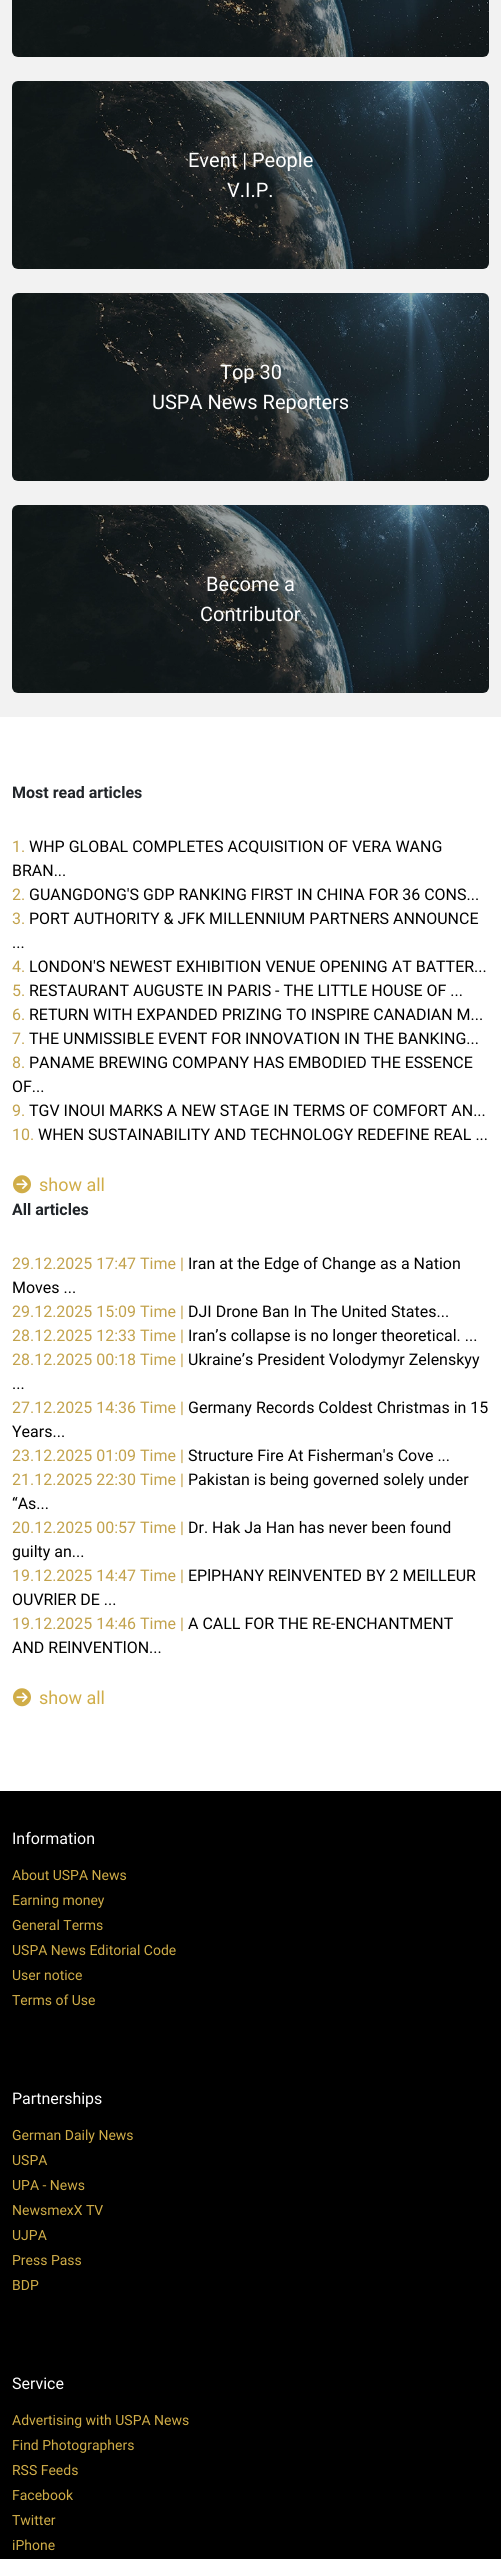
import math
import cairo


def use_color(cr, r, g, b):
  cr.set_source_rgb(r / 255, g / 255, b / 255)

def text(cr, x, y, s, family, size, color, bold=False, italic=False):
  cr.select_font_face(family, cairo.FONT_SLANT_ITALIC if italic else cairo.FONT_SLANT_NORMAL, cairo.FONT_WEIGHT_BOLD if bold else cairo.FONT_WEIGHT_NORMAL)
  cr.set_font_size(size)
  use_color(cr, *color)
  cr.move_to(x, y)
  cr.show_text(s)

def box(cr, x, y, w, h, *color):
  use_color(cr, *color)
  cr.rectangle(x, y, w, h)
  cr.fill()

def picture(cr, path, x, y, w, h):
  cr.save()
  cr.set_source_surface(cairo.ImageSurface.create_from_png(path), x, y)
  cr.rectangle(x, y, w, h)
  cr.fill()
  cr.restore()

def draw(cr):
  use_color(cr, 255, 255, 255)
  cr.paint()
  box(cr, 0, 0, 501, 717, 242, 242, 242)
  picture(cr, "img_01.png", 12, 0, 477, 57)
  picture(cr, "img_02.png", 12, 81, 477, 188)
  picture(cr, "img_02.png", 12, 293, 477, 188)
  picture(cr, "img_02.png", 12, 505, 477, 188)
  picture(cr, "img_03.png", 13, 1175, 18, 19)
  picture(cr, "img_03.png", 13, 1688, 18, 19)
  box(cr, 0, 1791, 501, 768, 0, 0, 0)
  text(cr, 188, 167, "Event | People", "Roboto", 20, (255, 255, 255))
  text(cr, 227, 197, "V.I.P.", "Roboto", 20, (255, 255, 255))
  text(cr, 220, 379, "Top 30", "Roboto", 20, (255, 255, 255))
  text(cr, 152, 409, "USPA News Reporters", "Roboto", 20, (255, 255, 255))
  text(cr, 206, 591, "Become a", "Roboto", 20, (255, 255, 255))
  text(cr, 200, 621, "Contributor", "Roboto", 20, (255, 255, 255))
  text(cr, 12, 798, "Most read articles", "Roboto", 16, (33, 37, 41), bold=True)
  text(cr, 12, 852, "1.", "Roboto", 16, (194, 162, 76))
  text(cr, 29, 852, "WHP GLOBAL COMPLETES ACQUISITION OF VERA WANG", "Roboto", 16, (0, 0, 0))
  text(cr, 12, 876, "BRAN...", "Roboto", 16, (0, 0, 0))
  text(cr, 12, 900, "2.", "Roboto", 16, (194, 162, 76))
  text(cr, 29, 900, "GUANGDONG'S GDP RANKING FIRST IN CHINA FOR 36 CONS...", "Roboto", 16, (0, 0, 0))
  text(cr, 12, 924, "3.", "Roboto", 16, (194, 162, 76))
  text(cr, 29, 924, "PORT AUTHORITY & JFK MILLENNIUM PARTNERS ANNOUNCE", "Roboto", 16, (0, 0, 0))
  text(cr, 12, 948, "...", "Roboto", 16, (0, 0, 0))
  text(cr, 12, 972, "4.", "Roboto", 16, (194, 162, 76))
  text(cr, 29, 972, "LONDON'S NEWEST EXHIBITION VENUE OPENING AT BATTER...", "Roboto", 16, (0, 0, 0))
  text(cr, 12, 996, "5.", "Roboto", 16, (194, 162, 76))
  text(cr, 29, 996, "RESTAURANT AUGUSTE IN PARIS - THE LITTLE HOUSE OF ...", "Roboto", 16, (0, 0, 0))
  text(cr, 12, 1020, "6.", "Roboto", 16, (194, 162, 76))
  text(cr, 29, 1020, "RETURN WITH EXPANDED PRIZING TO INSPIRE CANADIAN M...", "Roboto", 16, (0, 0, 0))
  text(cr, 12, 1044, "7.", "Roboto", 16, (194, 162, 76))
  text(cr, 29, 1044, "THE UNMISSIBLE EVENT FOR INNOVATION IN THE BANKING...", "Roboto", 16, (0, 0, 0))
  text(cr, 12, 1068, "8.", "Roboto", 16, (194, 162, 76))
  text(cr, 29, 1068, "PANAME BREWING COMPANY HAS EMBODIED THE ESSENCE", "Roboto", 16, (0, 0, 0))
  text(cr, 12, 1092, "OF...", "Roboto", 16, (0, 0, 0))
  text(cr, 12, 1116, "9.", "Roboto", 16, (194, 162, 76))
  text(cr, 29, 1116, "TGV INOUI MARKS A NEW STAGE IN TERMS OF COMFORT AN...", "Roboto", 16, (0, 0, 0))
  text(cr, 12, 1140, "10.", "Roboto", 16, (194, 162, 76))
  text(cr, 38, 1140, "WHEN SUSTAINABILITY AND TECHNOLOGY REDEFINE REAL ...", "Roboto", 16, (0, 0, 0))
  text(cr, 39, 1191, "show all", "Roboto", 18, (208, 173, 72))
  text(cr, 12, 1215, "All articles", "Roboto", 16, (33, 37, 41), bold=True)
  text(cr, 12, 1269, "29.12.2025 17:47 Time |", "Roboto", 16, (194, 162, 76))
  text(cr, 188, 1269, "Iran at the Edge of Change as a Nation", "Roboto", 16, (0, 0, 0))
  text(cr, 12, 1293, "Moves ...", "Roboto", 16, (0, 0, 0))
  text(cr, 12, 1317, "29.12.2025 15:09 Time |", "Roboto", 16, (194, 162, 76))
  text(cr, 188, 1317, "DJI Drone Ban In The United States...", "Roboto", 16, (0, 0, 0))
  text(cr, 12, 1341, "28.12.2025 12:33 Time |", "Roboto", 16, (194, 162, 76))
  text(cr, 188, 1341, "Iran’s collapse is no longer theoretical. ...", "Roboto", 16, (0, 0, 0))
  text(cr, 12, 1365, "28.12.2025 00:18 Time |", "Roboto", 16, (194, 162, 76))
  text(cr, 188, 1365, "Ukraine’s President Volodymyr Zelenskyy", "Roboto", 16, (0, 0, 0))
  text(cr, 12, 1389, "...", "Roboto", 16, (0, 0, 0))
  text(cr, 12, 1413, "27.12.2025 14:36 Time |", "Roboto", 16, (194, 162, 76))
  text(cr, 188, 1413, "Germany Records Coldest Christmas in 15", "Roboto", 16, (0, 0, 0))
  text(cr, 12, 1437, "Years...", "Roboto", 16, (0, 0, 0))
  text(cr, 12, 1461, "23.12.2025 01:09 Time |", "Roboto", 16, (194, 162, 76))
  text(cr, 188, 1461, "Structure Fire At Fisherman's Cove ...", "Roboto", 16, (0, 0, 0))
  text(cr, 12, 1485, "21.12.2025 22:30 Time |", "Roboto", 16, (194, 162, 76))
  text(cr, 188, 1485, "Pakistan is being governed solely under", "Roboto", 16, (0, 0, 0))
  text(cr, 12, 1509, "“As...", "Roboto", 16, (0, 0, 0))
  text(cr, 12, 1533, "20.12.2025 00:57 Time |", "Roboto", 16, (194, 162, 76))
  text(cr, 188, 1533, "Dr. Hak Ja Han has never been found", "Roboto", 16, (0, 0, 0))
  text(cr, 12, 1557, "guilty an...", "Roboto", 16, (0, 0, 0))
  text(cr, 12, 1581, "19.12.2025 14:47 Time |", "Roboto", 16, (194, 162, 76))
  text(cr, 188, 1581, "EPlPHANY RElNVENTED BY 2 MElLLEUR", "Roboto", 16, (0, 0, 0))
  text(cr, 12, 1605, "OUVRlER DE ...", "Roboto", 16, (0, 0, 0))
  text(cr, 12, 1629, "19.12.2025 14:46 Time |", "Roboto", 16, (194, 162, 76))
  text(cr, 188, 1629, "A CALL FOR THE RE-ENCHANTMENT", "Roboto", 16, (0, 0, 0))
  text(cr, 12, 1653, "AND RElNVENTlON...", "Roboto", 16, (0, 0, 0))
  text(cr, 39, 1704, "show all", "Roboto", 18, (208, 173, 72))
  text(cr, 12, 1844, "Information", "Roboto", 16, (255, 255, 255))
  text(cr, 12, 1880, "About USPA News", "Roboto", 14, (208, 173, 72))
  text(cr, 12, 1905, "Earning money", "Roboto", 14, (208, 173, 72))
  text(cr, 12, 1930, "General Terms", "Roboto", 14, (208, 173, 72))
  text(cr, 12, 1955, "USPA News Editorial Code", "Roboto", 14, (208, 173, 72))
  text(cr, 12, 1980, "User notice", "Roboto", 14, (208, 173, 72))
  text(cr, 12, 2005, "Terms of Use", "Roboto", 14, (208, 173, 72))
  text(cr, 12, 2104, "Partnerships", "Roboto", 16, (255, 255, 255))
  text(cr, 12, 2140, "German Daily News", "Roboto", 14, (208, 173, 72))
  text(cr, 12, 2165, "USPA", "Roboto", 14, (208, 173, 72))
  text(cr, 12, 2190, "UPA - News", "Roboto", 14, (208, 173, 72))
  text(cr, 12, 2215, "NewsmexX TV", "Roboto", 14, (208, 173, 72))
  text(cr, 12, 2240, "UJPA", "Roboto", 14, (208, 173, 72))
  text(cr, 12, 2265, "Press Pass", "Roboto", 14, (208, 173, 72))
  text(cr, 12, 2290, "BDP", "Roboto", 14, (208, 173, 72))
  text(cr, 12, 2389, "Service", "Roboto", 16, (255, 255, 255))
  text(cr, 12, 2425, "Advertising with USPA News", "Roboto", 14, (208, 173, 72))
  text(cr, 12, 2450, "Find Photographers", "Roboto", 14, (208, 173, 72))
  text(cr, 12, 2475, "RSS Feeds", "Roboto", 14, (208, 173, 72))
  text(cr, 12, 2500, "Facebook", "Roboto", 14, (208, 173, 72))
  text(cr, 12, 2525, "Twitter", "Roboto", 14, (208, 173, 72))
  text(cr, 12, 2550, "iPhone", "Roboto", 14, (208, 173, 72))


surface = cairo.ImageSurface(cairo.FORMAT_RGB24, 501, 2559)
cr = cairo.Context(surface)
options = cairo.FontOptions()
options.set_hint_metrics(cairo.HINT_METRICS_OFF)
options.set_hint_style(cairo.HINT_STYLE_NONE)
cr.set_font_options(options)
cr.set_miter_limit(4)
draw(cr)
surface.write_to_png("out.png")
